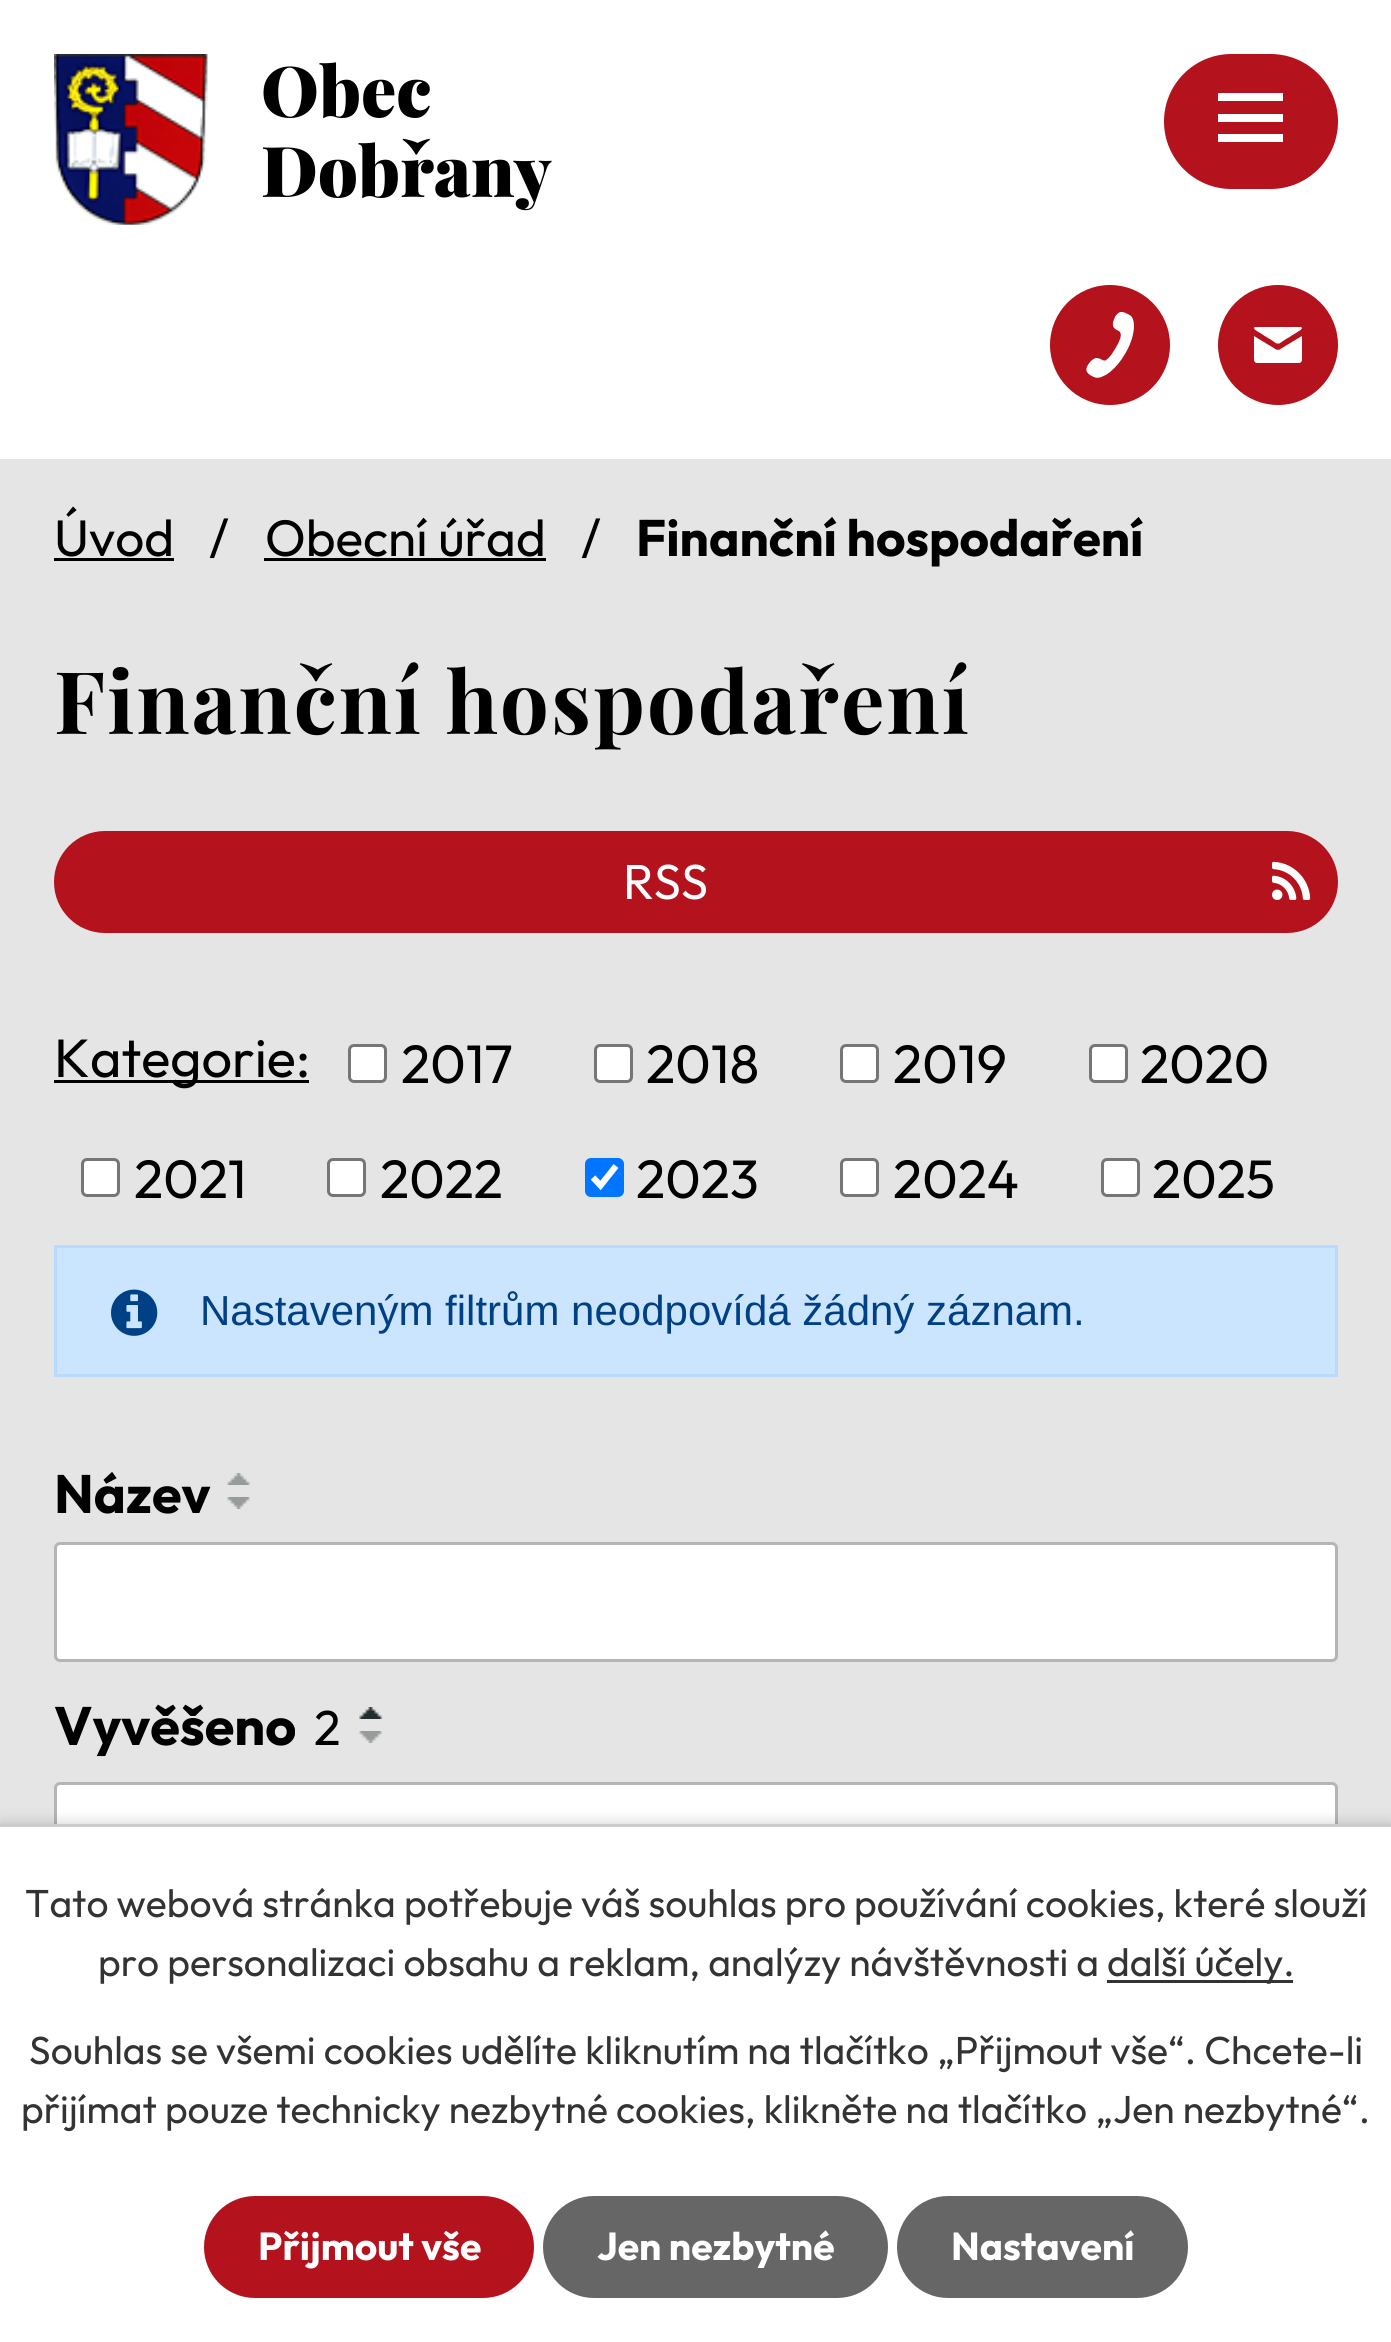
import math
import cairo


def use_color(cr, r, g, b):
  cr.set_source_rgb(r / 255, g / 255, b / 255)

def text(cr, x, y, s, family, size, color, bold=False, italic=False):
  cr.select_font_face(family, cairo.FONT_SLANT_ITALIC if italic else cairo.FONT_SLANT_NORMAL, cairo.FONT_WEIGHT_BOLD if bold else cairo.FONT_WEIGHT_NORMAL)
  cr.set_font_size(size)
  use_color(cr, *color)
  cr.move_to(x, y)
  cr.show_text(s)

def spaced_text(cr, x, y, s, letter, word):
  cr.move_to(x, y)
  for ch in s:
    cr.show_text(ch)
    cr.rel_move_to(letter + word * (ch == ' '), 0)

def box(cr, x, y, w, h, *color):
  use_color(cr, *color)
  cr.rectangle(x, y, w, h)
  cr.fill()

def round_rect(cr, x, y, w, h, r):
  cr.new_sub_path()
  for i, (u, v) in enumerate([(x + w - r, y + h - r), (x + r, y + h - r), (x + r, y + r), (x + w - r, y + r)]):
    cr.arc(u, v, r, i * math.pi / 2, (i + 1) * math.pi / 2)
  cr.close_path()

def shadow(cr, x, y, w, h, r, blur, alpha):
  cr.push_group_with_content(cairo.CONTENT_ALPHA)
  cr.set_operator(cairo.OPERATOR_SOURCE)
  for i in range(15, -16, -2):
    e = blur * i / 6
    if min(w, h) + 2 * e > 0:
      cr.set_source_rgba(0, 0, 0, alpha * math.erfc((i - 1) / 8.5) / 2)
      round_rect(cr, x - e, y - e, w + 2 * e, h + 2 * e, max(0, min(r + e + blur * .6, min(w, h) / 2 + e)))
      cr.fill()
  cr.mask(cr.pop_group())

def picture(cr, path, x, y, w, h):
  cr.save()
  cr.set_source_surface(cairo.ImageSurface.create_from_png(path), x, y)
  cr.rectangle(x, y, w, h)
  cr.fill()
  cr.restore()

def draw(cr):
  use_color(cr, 229, 229, 229)
  cr.paint()
  box(cr, 0, 0, 1391, 459, 255, 255, 255)
  picture(cr, "img_01.png", 54, 54, 154, 171)
  use_color(cr, 180, 18, 29)
  cr.arc(1110, 345, 60, 0, 2 * math.pi)
  cr.fill()
  picture(cr, "img_02.png", 1086, 312, 48, 66)
  cr.arc(1278, 345, 60, 0, 2 * math.pi)
  cr.fill()
  picture(cr, "img_03.png", 1254, 327, 48, 36)
  round_rect(cr, 1164, 54, 174, 135, 67.5)
  cr.fill()
  use_color(cr, 255, 255, 255)
  cr.new_path()
  cr.move_to(1218, 142)
  cr.line_to(1218, 134)
  cr.line_to(1283, 134)
  cr.line_to(1283, 142)
  cr.close_path()
  cr.move_to(1218, 93)
  cr.line_to(1283, 93)
  cr.line_to(1283, 101)
  cr.line_to(1218, 101)
  cr.close_path()
  cr.move_to(1218, 122)
  cr.line_to(1218, 114)
  cr.line_to(1283, 114)
  cr.line_to(1283, 122)
  cr.close_path()
  cr.fill()
  box(cr, 54, 558, 120, 3, 0, 0, 0)
  box(cr, 264, 558, 282, 3, 0, 0, 0)
  use_color(cr, 180, 18, 29)
  round_rect(cr, 54, 831, 1284, 102, 51)
  cr.fill()
  picture(cr, "img_04.png", 1272, 861, 39, 39)
  box(cr, 54, 1080, 255, 3, 0, 0, 0)
  use_color(cr, 255, 255, 255)
  round_rect(cr, 349.5, 1045.5, 36, 36, 4.5)
  cr.fill_preserve()
  use_color(cr, 118, 118, 118)
  cr.set_line_width(3)
  cr.stroke()
  use_color(cr, 255, 255, 255)
  round_rect(cr, 595.5, 1045.5, 36, 36, 4.5)
  cr.fill_preserve()
  use_color(cr, 118, 118, 118)
  cr.stroke()
  use_color(cr, 255, 255, 255)
  round_rect(cr, 841.5, 1045.5, 36, 36, 4.5)
  cr.fill_preserve()
  use_color(cr, 118, 118, 118)
  cr.stroke()
  use_color(cr, 255, 255, 255)
  round_rect(cr, 1090.5, 1045.5, 36, 36, 4.5)
  cr.fill_preserve()
  use_color(cr, 118, 118, 118)
  cr.stroke()
  use_color(cr, 255, 255, 255)
  round_rect(cr, 82.5, 1159.5, 36, 36, 4.5)
  cr.fill_preserve()
  use_color(cr, 118, 118, 118)
  cr.stroke()
  use_color(cr, 255, 255, 255)
  round_rect(cr, 328.5, 1159.5, 36, 36, 4.5)
  cr.fill_preserve()
  use_color(cr, 118, 118, 118)
  cr.stroke()
  use_color(cr, 0, 117, 255)
  round_rect(cr, 585, 1158, 39, 39, 6)
  cr.fill()
  cr.new_path()
  cr.move_to(593, 1177.5)
  cr.line_to(600.5, 1185.5)
  cr.line_to(616, 1166)
  use_color(cr, 255, 255, 255)
  cr.set_line_width(6.2)
  cr.stroke()
  round_rect(cr, 841.5, 1159.5, 36, 36, 4.5)
  cr.fill_preserve()
  use_color(cr, 118, 118, 118)
  cr.set_line_width(3)
  cr.stroke()
  use_color(cr, 255, 255, 255)
  round_rect(cr, 1102.5, 1159.5, 36, 36, 4.5)
  cr.fill_preserve()
  use_color(cr, 118, 118, 118)
  cr.stroke()
  use_color(cr, 204, 229, 255)
  cr.rectangle(55.5, 1246.5, 1281, 129)
  cr.fill_preserve()
  use_color(cr, 184, 218, 255)
  cr.stroke()
  picture(cr, "img_05.png", 111, 1289, 47, 47)
  picture(cr, "img_06.png", 227, 1473, 23, 12)
  picture(cr, "img_07.png", 227, 1497, 23, 12)
  picture(cr, "img_08.png", 359, 1707, 24, 12)
  picture(cr, "img_09.png", 359, 1731, 24, 12)
  use_color(cr, 255, 255, 255)
  round_rect(cr, 55.5, 1543.5, 1281, 117, 4.5)
  cr.fill_preserve()
  use_color(cr, 181, 181, 181)
  cr.stroke()
  use_color(cr, 255, 255, 255)
  round_rect(cr, 55.5, 1783.5, 1281, 114, 4.5)
  cr.fill_preserve()
  use_color(cr, 181, 181, 181)
  cr.stroke()
  use_color(cr, 0, 0, 0)
  shadow(cr, 0, 1824, 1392, 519, 0, 7.5, 0.2)
  box(cr, 0, 1827, 1391, 515, 255, 255, 255)
  box(cr, 0, 1824, 1391, 3, 204, 204, 204)
  box(cr, 1107, 1980, 186, 3, 51, 51, 51)
  use_color(cr, 180, 18, 29)
  round_rect(cr, 204, 2196, 330, 102, 51)
  cr.fill()
  use_color(cr, 102, 102, 102)
  round_rect(cr, 543, 2196, 345, 102, 51)
  cr.fill()
  round_rect(cr, 897, 2196, 291, 102, 51)
  cr.fill()
  text(cr, 261, 117, "Obec", "Playfair Display Black", 70, (0, 0, 0))
  text(cr, 261, 197, "Dobřany", "Playfair Display Black", 70, (0, 0, 0))
  text(cr, 54, 556, "Úvod", "Outfit", 51.25, (0, 0, 0))
  text(cr, 209, 556, "/", "Outfit", 51.25, (0, 0, 0))
  text(cr, 265, 556, "Obecní úřad", "Outfit", 51.25, (0, 0, 0))
  text(cr, 581, 556, "/", "Outfit", 51.25, (0, 0, 0))
  text(cr, 636, 556, "Finanční hospodaření", "Outfit", 51.25, (0, 0, 0), bold=True)
  cr.select_font_face("Playfair Display", cairo.FONT_SLANT_NORMAL, cairo.FONT_WEIGHT_BOLD)
  cr.set_font_size(86.4)
  spaced_text(cr, 54, 734, "Finanční hospodaření", 2.1, 0)
  text(cr, 623, 899, "RSS", "Outfit", 49, (255, 255, 255))
  text(cr, 54, 1077, "Kategorie:", "Outfit", 54, (0, 0, 0))
  text(cr, 401, 1083, "2017", "Outfit", 54, (0, 0, 0))
  text(cr, 646, 1083, "2018", "Outfit", 54, (0, 0, 0))
  text(cr, 893, 1083, "2019", "Outfit", 54, (0, 0, 0))
  text(cr, 1140, 1083, "2020", "Outfit", 54, (0, 0, 0))
  text(cr, 134, 1198, "2021", "Outfit", 54, (0, 0, 0))
  text(cr, 380, 1198, "2022", "Outfit", 54, (0, 0, 0))
  text(cr, 636, 1198, "2023", "Outfit", 54, (0, 0, 0))
  text(cr, 893, 1198, "2024", "Outfit", 54, (0, 0, 0))
  text(cr, 1152, 1198, "2025", "Outfit", 54, (0, 0, 0))
  text(cr, 200, 1325, "Nastaveným filtrům neodpovídá žádný záznam.", "Liberation Sans", 42, (0, 64, 133))
  text(cr, 54, 1513, "Název", "Outfit", 54, (0, 0, 0), bold=True)
  text(cr, 54, 1745, "Vyvěšeno", "Outfit", 54, (0, 0, 0), bold=True)
  text(cr, 314, 1745, "2", "Outfit", 49, (0, 0, 0))
  text(cr, 25, 1917, "Tato webová stránka potřebuje váš souhlas pro používání cookies, které slouží", "Outfit", 39, (51, 51, 51))
  text(cr, 98, 1976, "pro personalizaci obsahu a reklam, analýzy návštěvnosti a", "Outfit", 39, (51, 51, 51))
  text(cr, 1107, 1976, "další účely.", "Outfit", 39, (51, 51, 51))
  text(cr, 29, 2064, "Souhlas se všemi cookies udělíte kliknutím na tlačítko „Přijmout vše“. Chcete-li", "Outfit", 39, (51, 51, 51))
  text(cr, 21, 2123, "přijímat pouze technicky nezbytné cookies, klikněte na tlačítko „Jen nezbytné“.", "Outfit", 39, (51, 51, 51))
  text(cr, 258, 2260, "Přijmout vše", "Outfit", 39, (255, 255, 255), bold=True)
  text(cr, 597, 2260, "Jen nezbytné", "Outfit", 39, (255, 255, 255), bold=True)
  text(cr, 951, 2260, "Nastavení", "Outfit", 39, (255, 255, 255), bold=True)


surface = cairo.ImageSurface(cairo.FORMAT_RGB24, 1391, 2342)
cr = cairo.Context(surface)
options = cairo.FontOptions()
options.set_hint_metrics(cairo.HINT_METRICS_OFF)
options.set_hint_style(cairo.HINT_STYLE_NONE)
cr.set_font_options(options)
cr.set_miter_limit(4)
draw(cr)
surface.write_to_png("out.png")
